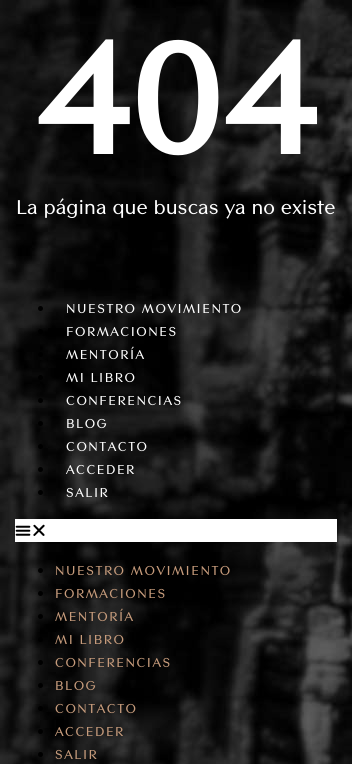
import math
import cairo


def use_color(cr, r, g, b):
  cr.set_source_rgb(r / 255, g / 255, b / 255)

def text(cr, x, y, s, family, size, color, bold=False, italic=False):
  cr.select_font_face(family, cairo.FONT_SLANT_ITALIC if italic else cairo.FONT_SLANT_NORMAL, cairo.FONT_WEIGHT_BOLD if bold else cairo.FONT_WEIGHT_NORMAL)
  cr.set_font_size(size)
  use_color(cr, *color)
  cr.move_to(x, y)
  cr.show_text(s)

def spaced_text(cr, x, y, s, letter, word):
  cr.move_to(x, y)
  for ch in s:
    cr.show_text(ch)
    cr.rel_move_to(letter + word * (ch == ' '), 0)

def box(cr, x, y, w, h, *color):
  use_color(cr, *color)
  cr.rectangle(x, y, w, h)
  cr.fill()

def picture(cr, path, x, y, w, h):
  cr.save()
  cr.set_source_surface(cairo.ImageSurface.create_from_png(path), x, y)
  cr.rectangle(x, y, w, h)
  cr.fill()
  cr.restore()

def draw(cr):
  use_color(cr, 255, 255, 255)
  cr.paint()
  picture(cr, "img_01.png", 0, 0, 352, 764)
  use_color(cr, 0, 0, 0)
  cr.arc(40.5, 308.5, 2.5, 0, 2 * math.pi)
  cr.fill()
  cr.arc(40.5, 331.5, 2.5, 0, 2 * math.pi)
  cr.fill()
  cr.arc(40.5, 354.5, 2.5, 0, 2 * math.pi)
  cr.fill()
  cr.arc(40.5, 377.5, 2.5, 0, 2 * math.pi)
  cr.fill()
  cr.arc(40.5, 400.5, 2.5, 0, 2 * math.pi)
  cr.fill()
  cr.arc(40.5, 423.5, 2.5, 0, 2 * math.pi)
  cr.fill()
  cr.arc(40.5, 446.5, 2.5, 0, 2 * math.pi)
  cr.fill()
  cr.arc(40.5, 469.5, 2.5, 0, 2 * math.pi)
  cr.fill()
  cr.arc(40.5, 492.5, 2.5, 0, 2 * math.pi)
  cr.fill()
  box(cr, 15, 519, 322, 23, 255, 255, 255)
  picture(cr, "img_02.png", 15, 525, 16, 11)
  picture(cr, "img_03.png", 33, 524, 12, 12)
  use_color(cr, 0, 0, 0)
  cr.arc(40.5, 570.5, 2.5, 0, 2 * math.pi)
  cr.fill()
  cr.arc(40.5, 593.5, 2.5, 0, 2 * math.pi)
  cr.fill()
  cr.arc(40.5, 616.5, 2.5, 0, 2 * math.pi)
  cr.fill()
  cr.arc(40.5, 639.5, 2.5, 0, 2 * math.pi)
  cr.fill()
  cr.arc(40.5, 662.5, 2.5, 0, 2 * math.pi)
  cr.fill()
  cr.arc(40.5, 685.5, 2.5, 0, 2 * math.pi)
  cr.fill()
  cr.arc(40.5, 708.5, 2.5, 0, 2 * math.pi)
  cr.fill()
  cr.arc(40.5, 731.5, 2.5, 0, 2 * math.pi)
  cr.fill()
  cr.arc(40.5, 754.5, 2.5, 0, 2 * math.pi)
  cr.fill()
  text(cr, 35, 154, "404", "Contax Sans", 160, (255, 255, 255), bold=True)
  text(cr, 16, 214, "La página que buscas ya no existe", "Contax Sans Medium", 20, (255, 255, 255))
  cr.set_font_size(13)
  spaced_text(cr, 66, 313, "NUESTRO MOVIMIENTO", 1.5, 0)
  spaced_text(cr, 66, 336, "FORMACIONES", 1.5, 0)
  spaced_text(cr, 66, 359, "MENTORÍA", 1.5, 0)
  spaced_text(cr, 66, 382, "MI LIBRO", 1.5, 0)
  spaced_text(cr, 66, 405, "CONFERENCIAS", 1.5, 0)
  spaced_text(cr, 66, 428, "BLOG", 1.5, 0)
  spaced_text(cr, 66, 451, "CONTACTO", 1.5, 0)
  spaced_text(cr, 66, 474, "ACCEDER", 1.5, 0)
  spaced_text(cr, 66, 497, "SALIR", 1.5, 0)
  use_color(cr, 198, 155, 123)
  spaced_text(cr, 55, 575, "NUESTRO MOVIMIENTO", 1.5, 0)
  spaced_text(cr, 55, 598, "FORMACIONES", 1.5, 0)
  spaced_text(cr, 55, 621, "MENTORÍA", 1.5, 0)
  spaced_text(cr, 55, 644, "MI LIBRO", 1.5, 0)
  spaced_text(cr, 55, 667, "CONFERENCIAS", 1.5, 0)
  spaced_text(cr, 55, 690, "BLOG", 1.5, 0)
  spaced_text(cr, 55, 713, "CONTACTO", 1.5, 0)
  spaced_text(cr, 55, 736, "ACCEDER", 1.5, 0)
  spaced_text(cr, 55, 759, "SALIR", 1.5, 0)


surface = cairo.ImageSurface(cairo.FORMAT_RGB24, 352, 764)
cr = cairo.Context(surface)
options = cairo.FontOptions()
options.set_hint_metrics(cairo.HINT_METRICS_OFF)
options.set_hint_style(cairo.HINT_STYLE_NONE)
cr.set_font_options(options)
cr.set_miter_limit(4)
draw(cr)
surface.write_to_png("out.png")
